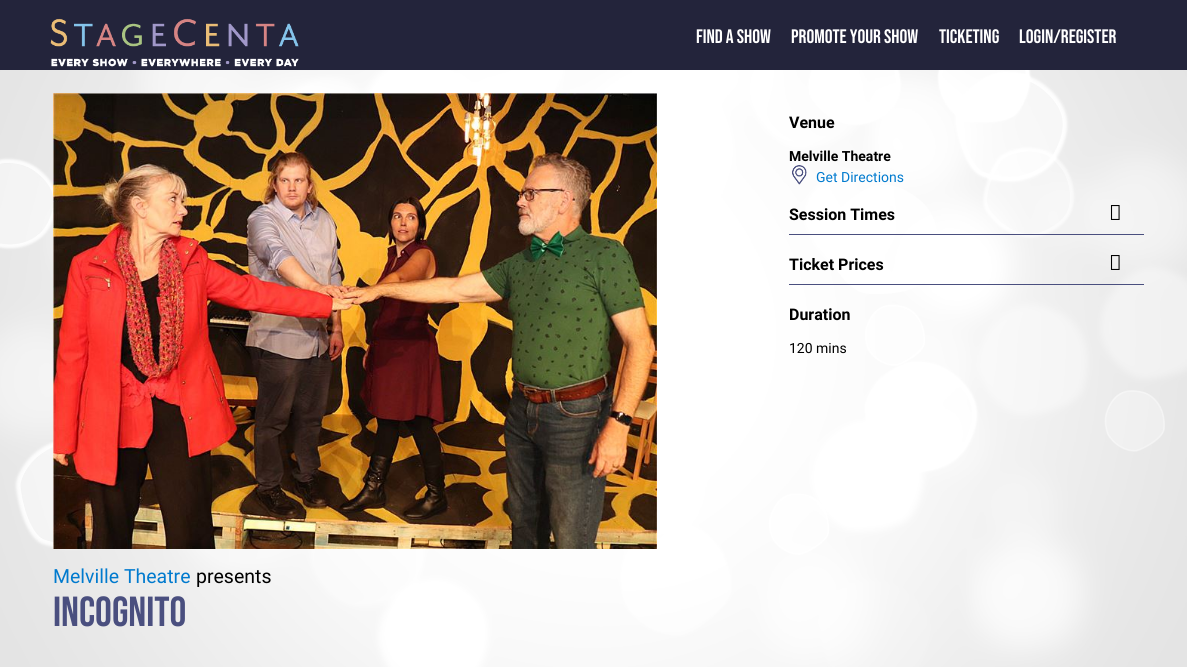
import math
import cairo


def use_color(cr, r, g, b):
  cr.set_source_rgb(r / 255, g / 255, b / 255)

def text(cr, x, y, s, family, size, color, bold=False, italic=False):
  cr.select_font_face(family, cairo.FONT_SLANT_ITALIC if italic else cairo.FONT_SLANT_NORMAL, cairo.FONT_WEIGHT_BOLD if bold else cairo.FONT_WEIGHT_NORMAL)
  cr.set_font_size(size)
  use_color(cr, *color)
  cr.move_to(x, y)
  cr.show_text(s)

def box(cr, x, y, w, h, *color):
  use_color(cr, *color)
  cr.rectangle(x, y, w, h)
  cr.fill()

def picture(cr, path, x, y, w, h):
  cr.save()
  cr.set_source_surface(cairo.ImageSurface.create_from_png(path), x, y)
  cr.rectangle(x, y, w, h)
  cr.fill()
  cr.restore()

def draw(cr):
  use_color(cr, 255, 255, 255)
  cr.paint()
  picture(cr, "img_01.png", 0, 70, 1187, 597)
  box(cr, 0, 0, 1187, 70, 35, 36, 59)
  picture(cr, "img_02.png", 50, 18, 249, 49)
  picture(cr, "img_03.png", 792, 165, 15, 20)
  box(cr, 789, 234, 355, 1, 74, 79, 127)
  picture(cr, "img_04.png", 1110, 205, 10, 15)
  box(cr, 789, 284, 355, 1, 74, 79, 127)
  picture(cr, "img_05.png", 1110, 255, 10, 15)
  picture(cr, "img_06.png", 53, 93, 604, 456)
  text(cr, 696, 43, "FIND A SHOW", "Bebas Neue", 19.5, (255, 255, 255))
  text(cr, 791, 43, "PROMOTE YOUR SHOW", "Bebas Neue", 19.5, (255, 255, 255))
  text(cr, 939, 43, "TICKETING", "Bebas Neue", 19.5, (255, 255, 255))
  text(cr, 1019, 43, "LOGIN/REGISTER", "Bebas Neue", 19.5, (255, 255, 255))
  text(cr, 789, 128, "Venue", "Roboto", 16, (0, 0, 0), bold=True)
  text(cr, 789, 161, "Melville Theatre", "Roboto", 14, (0, 0, 0), bold=True)
  text(cr, 816, 182, "Get Directions", "Roboto", 14, (0, 122, 206))
  text(cr, 789, 220, "Session Times", "Roboto", 16, (0, 0, 0), bold=True)
  text(cr, 789, 270, "Ticket Prices", "Roboto", 16, (0, 0, 0), bold=True)
  text(cr, 789, 320, "Duration", "Roboto", 16, (0, 0, 0), bold=True)
  text(cr, 789, 353, "120 mins", "Roboto", 14, (0, 0, 0))
  text(cr, 53, 583, "Melville Theatre", "Roboto", 19.5, (0, 122, 206))
  text(cr, 196, 583, "presents", "Roboto", 19.5, (0, 0, 0))
  text(cr, 53, 626, "INCOGNITO", "Bebas Neue", 42, (74, 79, 127))


surface = cairo.ImageSurface(cairo.FORMAT_RGB24, 1187, 667)
cr = cairo.Context(surface)
options = cairo.FontOptions()
options.set_hint_metrics(cairo.HINT_METRICS_OFF)
options.set_hint_style(cairo.HINT_STYLE_NONE)
cr.set_font_options(options)
cr.set_miter_limit(4)
draw(cr)
surface.write_to_png("out.png")
